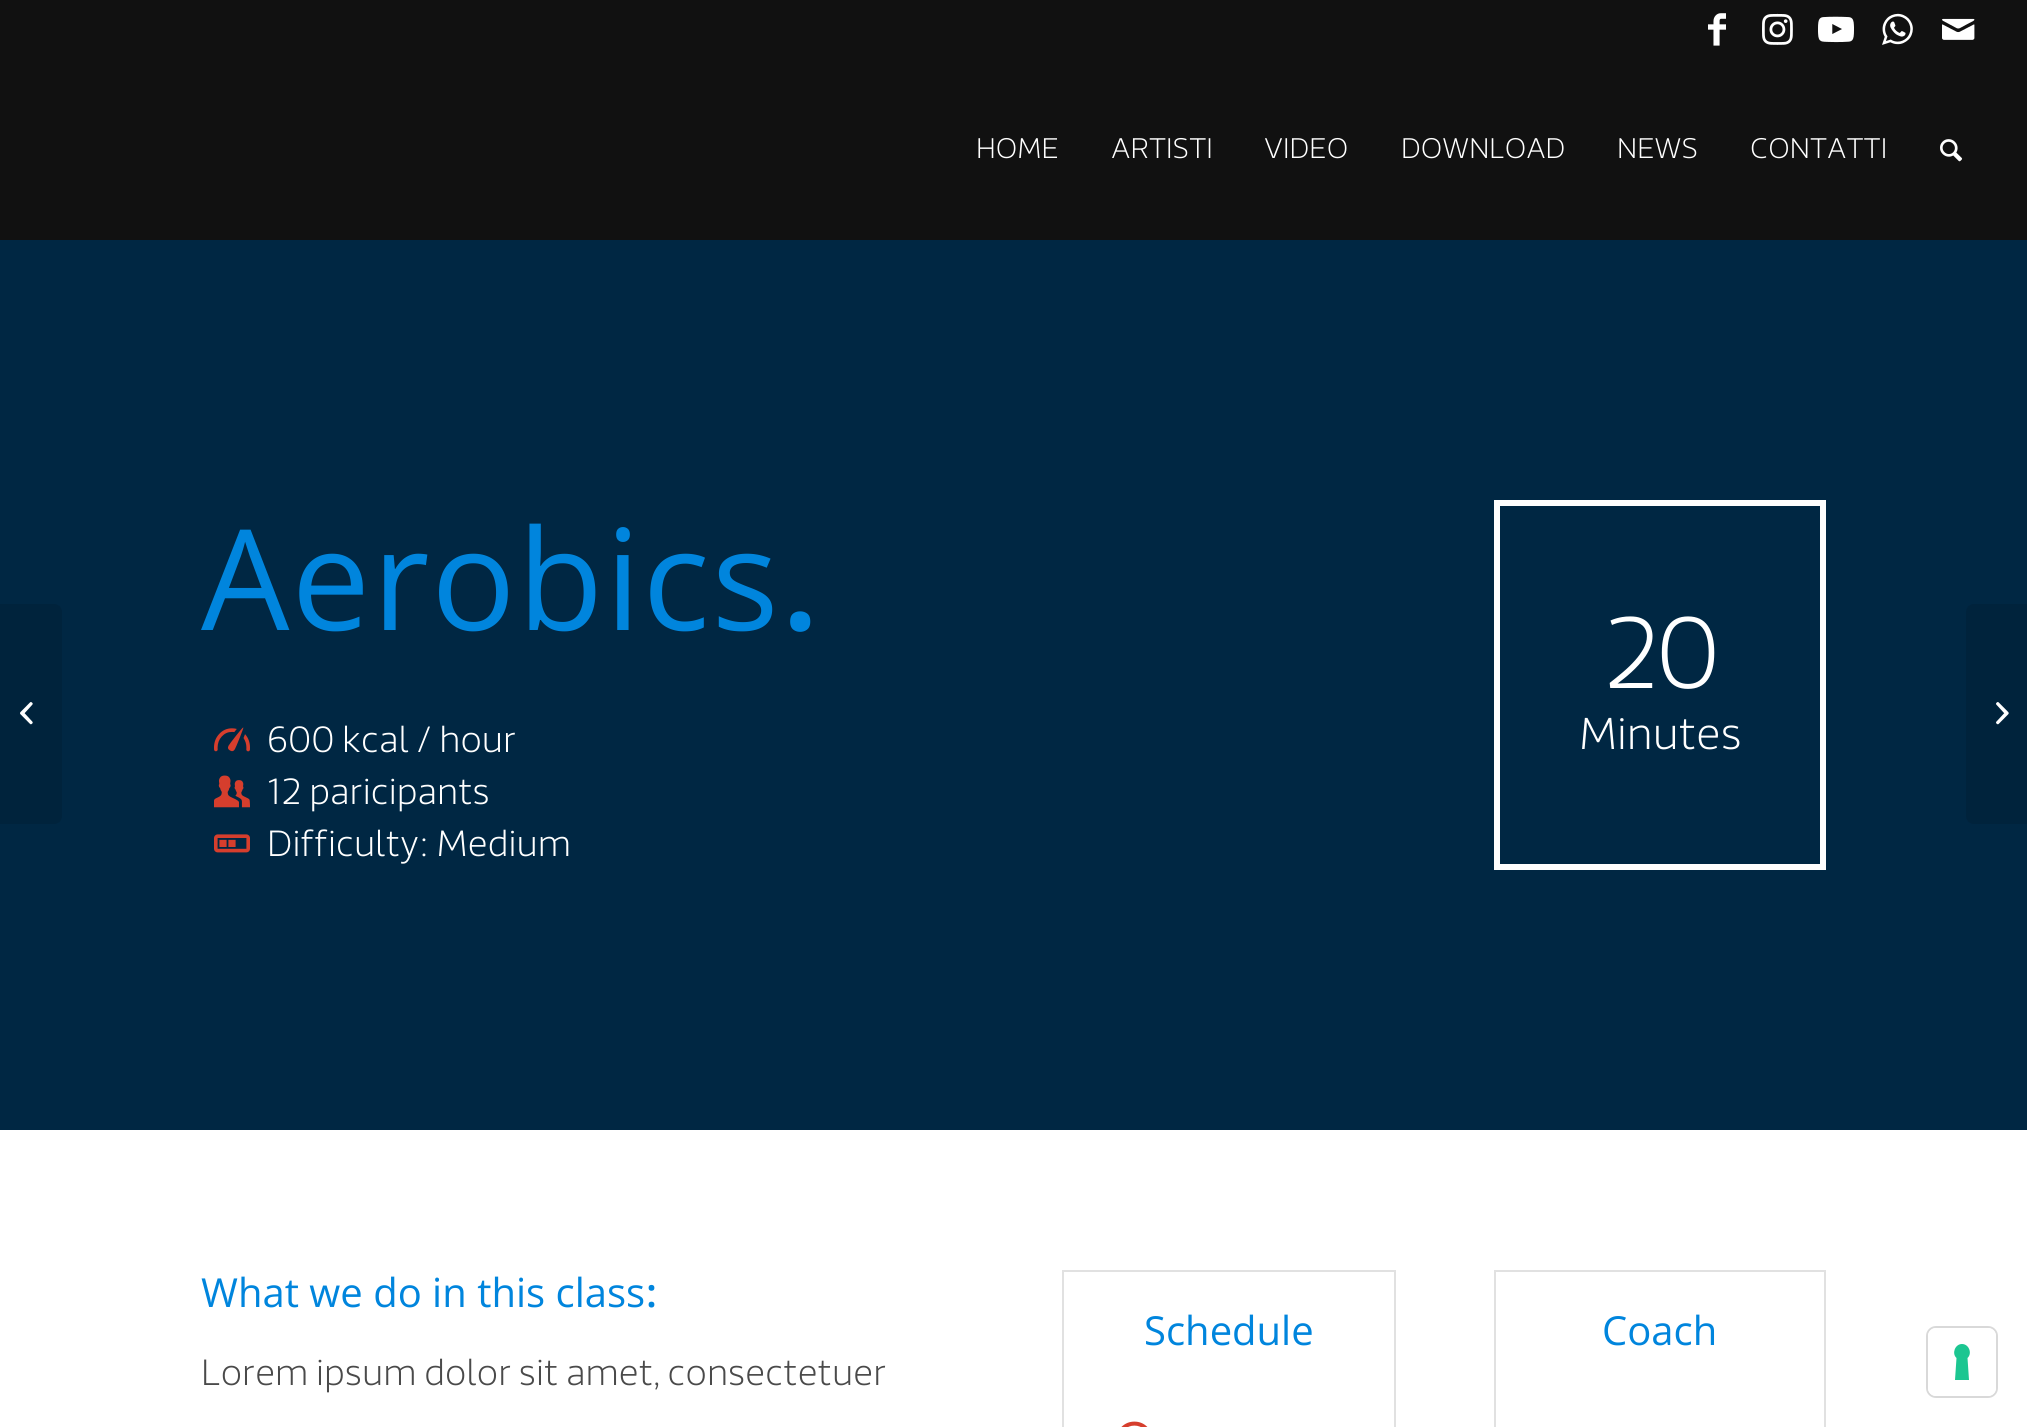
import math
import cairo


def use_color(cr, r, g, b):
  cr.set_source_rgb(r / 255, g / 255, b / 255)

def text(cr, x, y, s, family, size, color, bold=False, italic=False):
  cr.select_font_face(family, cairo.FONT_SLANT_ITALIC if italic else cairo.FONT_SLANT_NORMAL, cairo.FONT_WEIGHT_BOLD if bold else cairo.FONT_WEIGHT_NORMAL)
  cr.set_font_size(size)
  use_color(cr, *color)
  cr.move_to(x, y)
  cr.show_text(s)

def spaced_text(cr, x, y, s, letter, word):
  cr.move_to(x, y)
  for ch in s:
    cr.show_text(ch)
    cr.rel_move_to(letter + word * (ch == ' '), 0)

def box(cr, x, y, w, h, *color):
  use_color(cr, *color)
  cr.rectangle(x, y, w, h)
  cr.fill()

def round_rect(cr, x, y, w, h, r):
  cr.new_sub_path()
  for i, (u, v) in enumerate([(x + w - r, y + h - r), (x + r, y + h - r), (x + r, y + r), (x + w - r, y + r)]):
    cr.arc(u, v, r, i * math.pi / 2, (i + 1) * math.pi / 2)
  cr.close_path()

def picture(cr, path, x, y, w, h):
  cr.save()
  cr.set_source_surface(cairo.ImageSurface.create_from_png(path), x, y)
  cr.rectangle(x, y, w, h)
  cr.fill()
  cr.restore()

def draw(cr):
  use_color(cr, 17, 17, 17)
  cr.paint()
  picture(cr, "img_01.png", 1708, 13, 18, 33)
  picture(cr, "img_02.png", 1762, 13, 31, 32)
  picture(cr, "img_03.png", 1818, 16, 36, 27)
  picture(cr, "img_04.png", 1882, 13, 31, 32)
  picture(cr, "img_05.png", 1942, 18, 33, 22)
  picture(cr, "img_06.png", 1940, 139, 23, 23)
  box(cr, 0, 240, 2027, 890, 0, 39, 67)
  use_color(cr, 0, 35, 60)
  cr.new_path()
  cr.move_to(0, 604)
  cr.line_to(54, 604)
  cr.curve_to(58.5, 604, 62, 607.5, 62, 612)
  cr.line_to(62, 816)
  cr.curve_to(62, 820.5, 58.5, 824, 54, 824)
  cr.line_to(0, 824)
  cr.close_path()
  cr.fill()
  picture(cr, "img_07.png", 20, 702, 13, 23)
  picture(cr, "img_08.png", 214, 727, 36, 25)
  picture(cr, "img_09.png", 214, 775, 36, 33)
  picture(cr, "img_10.png", 214, 834, 36, 19)
  cr.rectangle(1497, 503, 326, 364)
  use_color(cr, 255, 255, 255)
  cr.set_line_width(6)
  cr.stroke()
  box(cr, 0, 1130, 2027, 297, 255, 255, 255)
  cr.rectangle(1063, 1271, 332, 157)
  use_color(cr, 225, 225, 225)
  cr.set_line_width(2)
  cr.stroke()
  picture(cr, "img_11.png", 1121, 1421, 27, 6)
  cr.rectangle(1495, 1271, 330, 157)
  cr.stroke()
  use_color(cr, 0, 35, 60)
  cr.new_path()
  cr.move_to(1974, 604)
  cr.line_to(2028, 604)
  cr.line_to(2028, 824)
  cr.line_to(1974, 824)
  cr.curve_to(1969.5, 824, 1966, 820.5, 1966, 816)
  cr.line_to(1966, 612)
  cr.curve_to(1966, 607.5, 1969.5, 604, 1974, 604)
  cr.close_path()
  cr.fill()
  picture(cr, "img_12.png", 1996, 702, 13, 23)
  round_rect(cr, 1927, 1327, 70, 70, 9)
  use_color(cr, 217, 217, 217)
  cr.stroke()
  use_color(cr, 255, 255, 255)
  round_rect(cr, 1928, 1328, 68, 68, 8)
  cr.fill()
  use_color(cr, 28, 198, 145)
  cr.set_fill_rule(cairo.FILL_RULE_EVEN_ODD)
  cr.new_path()
  cr.move_to(1962, 1344)
  cr.curve_to(1969, 1344, 1972.5, 1353.5, 1967.5, 1358)
  cr.line_to(1969, 1380)
  cr.line_to(1955, 1380)
  cr.line_to(1956.5, 1358)
  cr.curve_to(1951.5, 1353.5, 1955, 1344, 1962, 1344)
  cr.close_path()
  cr.fill()
  text(cr, 976, 158, "HOME", "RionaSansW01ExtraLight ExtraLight", 28, (255, 255, 255))
  text(cr, 1111, 158, "ARTISTI", "RionaSansW01ExtraLight ExtraLight", 28, (255, 255, 255))
  text(cr, 1264, 158, "VIDEO", "RionaSansW01ExtraLight ExtraLight", 28, (255, 255, 255))
  text(cr, 1401, 158, "DOWNLOAD", "RionaSansW01ExtraLight ExtraLight", 28, (255, 255, 255))
  text(cr, 1617, 158, "NEWS", "RionaSansW01ExtraLight ExtraLight", 28, (255, 255, 255))
  text(cr, 1750, 158, "CONTATTI", "RionaSansW01ExtraLight ExtraLight", 28, (255, 255, 255))
  cr.select_font_face("Open Sans")
  cr.set_font_size(140)
  use_color(cr, 0, 133, 221)
  spaced_text(cr, 201, 630, "Aerobics", 2, 0)
  cr.select_font_face("Open Sans SemiBold")
  spaced_text(cr, 781, 630, ".", 2, 0)
  text(cr, 267, 752, "600 kcal / hour", "RionaSansW01ExtraLight ExtraLight", 36, (255, 255, 255))
  text(cr, 267, 804, "12 paricipants", "RionaSansW01ExtraLight ExtraLight", 36, (255, 255, 255))
  text(cr, 267, 856, "Difficulty: Medium", "RionaSansW01ExtraLight ExtraLight", 36, (255, 255, 255))
  cr.set_font_size(100)
  spaced_text(cr, 1604, 688, "20", -4, 0)
  text(cr, 1579, 749, "Minutes", "RionaSansW01ExtraLight ExtraLight", 44, (255, 255, 255))
  text(cr, 201, 1307, "What we do in this class", "Open Sans", 40, (0, 133, 221))
  text(cr, 646, 1307, ":", "Open Sans SemiBold", 40, (0, 133, 221))
  text(cr, 201, 1385, "Lorem ipsum dolor sit amet, consectetuer", "RionaSansW01ExtraLight ExtraLight", 36, (74, 74, 74))
  text(cr, 1144, 1345, "Schedule", "Open Sans", 40, (0, 133, 221))
  text(cr, 1602, 1345, "Coach", "Open Sans", 40, (0, 133, 221))


surface = cairo.ImageSurface(cairo.FORMAT_RGB24, 2027, 1427)
cr = cairo.Context(surface)
options = cairo.FontOptions()
options.set_hint_metrics(cairo.HINT_METRICS_OFF)
options.set_hint_style(cairo.HINT_STYLE_NONE)
cr.set_font_options(options)
cr.set_miter_limit(4)
draw(cr)
surface.write_to_png("out.png")
